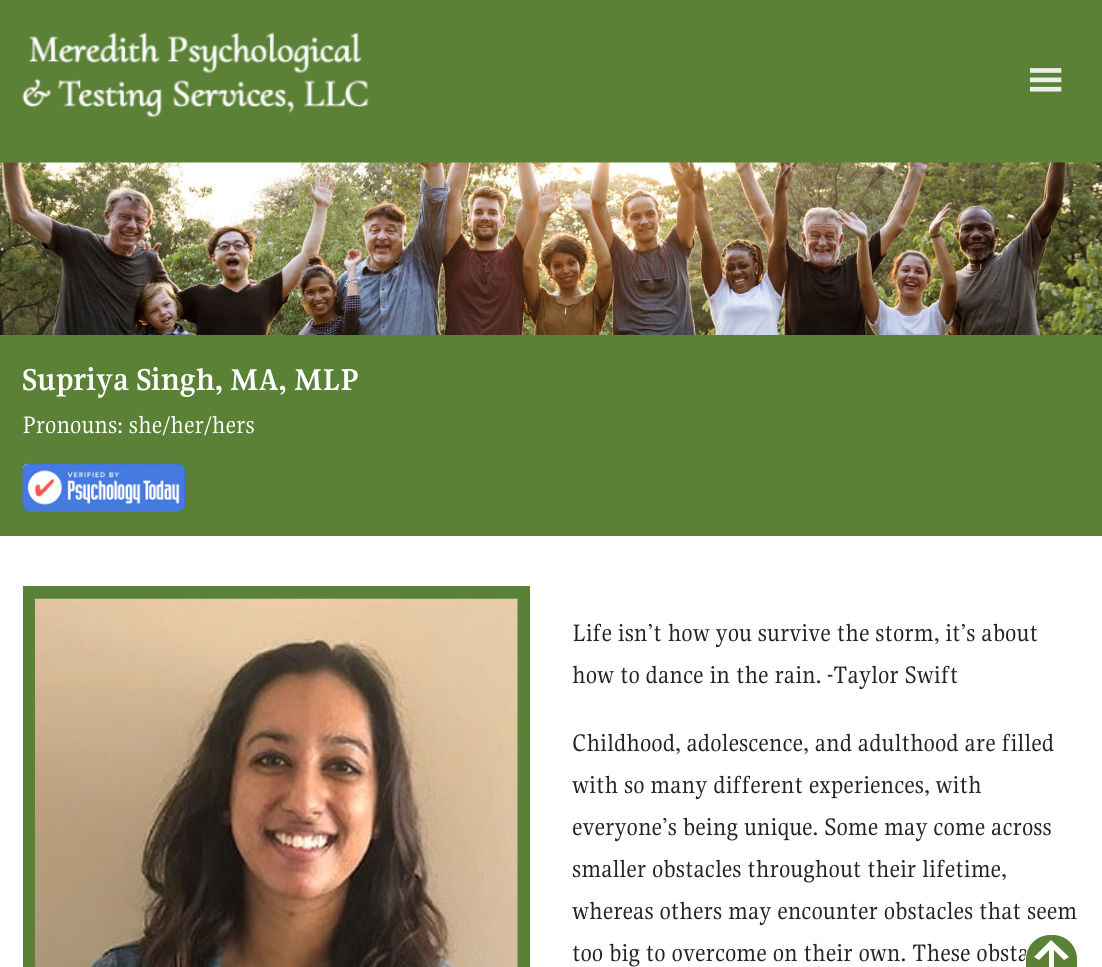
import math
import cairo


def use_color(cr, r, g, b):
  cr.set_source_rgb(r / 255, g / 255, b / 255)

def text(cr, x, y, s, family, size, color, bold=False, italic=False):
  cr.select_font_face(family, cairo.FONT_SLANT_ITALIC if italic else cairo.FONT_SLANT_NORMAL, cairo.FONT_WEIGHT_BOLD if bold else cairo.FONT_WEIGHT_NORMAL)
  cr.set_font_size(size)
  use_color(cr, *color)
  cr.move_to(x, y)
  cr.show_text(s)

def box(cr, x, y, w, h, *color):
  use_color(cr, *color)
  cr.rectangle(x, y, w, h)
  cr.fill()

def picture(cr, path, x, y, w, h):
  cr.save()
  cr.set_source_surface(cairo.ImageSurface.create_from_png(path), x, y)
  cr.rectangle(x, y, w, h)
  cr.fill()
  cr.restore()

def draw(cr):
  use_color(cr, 255, 255, 255)
  cr.paint()
  box(cr, 0, 0, 1102, 163, 91, 129, 54)
  picture(cr, "img_01.png", 22, 32, 347, 86)
  picture(cr, "img_02.png", 1030, 68, 32, 24)
  picture(cr, "img_03.png", 0, 162, 1102, 173)
  box(cr, 0, 335, 1102, 201, 91, 129, 54)
  picture(cr, "img_04.png", 22, 463, 163, 49)
  box(cr, 23, 586, 507, 381, 91, 129, 54)
  picture(cr, "img_05.png", 35, 598, 483, 369)
  text(cr, 22, 390, "Supriya Singh, MA, MLP", "Gupter", 33.25, (255, 255, 255), bold=True)
  text(cr, 22, 433, "Pronouns: she/her/hers", "Gupter", 26.25, (255, 255, 255))
  text(cr, 572, 641, "Life isn’t how you survive the storm, it’s about", "Gupter", 26.25, (36, 36, 36))
  text(cr, 572, 683, "how to dance in the rain. -Taylor Swift", "Gupter", 26.25, (36, 36, 36))
  text(cr, 572, 751, "Childhood, adolescence, and adulthood are filled", "Gupter", 26.25, (36, 36, 36))
  text(cr, 572, 793, "with so many different experiences, with", "Gupter", 26.25, (36, 36, 36))
  text(cr, 572, 835, "everyone’s being unique. Some may come across", "Gupter", 26.25, (36, 36, 36))
  text(cr, 572, 877, "smaller obstacles throughout their lifetime,", "Gupter", 26.25, (36, 36, 36))
  text(cr, 572, 919, "whereas others may encounter obstacles that seem", "Gupter", 26.25, (36, 36, 36))
  text(cr, 572, 961, "too big to overcome on their own. These obsta", "Gupter", 26.25, (36, 36, 36))
  use_color(cr, 91, 129, 54)
  cr.new_path()
  cr.move_to(1050, 934.5)
  cr.line_to(1053, 934.5)
  cr.curve_to(1066.5, 934.5, 1077.5, 945.5, 1077.5, 959)
  cr.line_to(1077.5, 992.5)
  cr.line_to(1025.5, 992.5)
  cr.line_to(1025.5, 959)
  cr.curve_to(1025.5, 945.5, 1036.5, 934.5, 1050, 934.5)
  cr.close_path()
  cr.fill_preserve()
  use_color(cr, 255, 255, 255)
  cr.set_line_width(1)
  cr.stroke()
  cr.new_path()
  cr.move_to(1054, 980)
  cr.line_to(1049, 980)
  cr.line_to(1049, 950)
  cr.line_to(1039, 960)
  cr.line_to(1034, 957)
  cr.line_to(1051, 940)
  cr.line_to(1069, 957)
  cr.line_to(1064, 960)
  cr.line_to(1054, 950)
  cr.close_path()
  cr.fill()


surface = cairo.ImageSurface(cairo.FORMAT_RGB24, 1102, 967)
cr = cairo.Context(surface)
options = cairo.FontOptions()
options.set_hint_metrics(cairo.HINT_METRICS_OFF)
options.set_hint_style(cairo.HINT_STYLE_NONE)
cr.set_font_options(options)
cr.set_miter_limit(4)
draw(cr)
surface.write_to_png("out.png")
